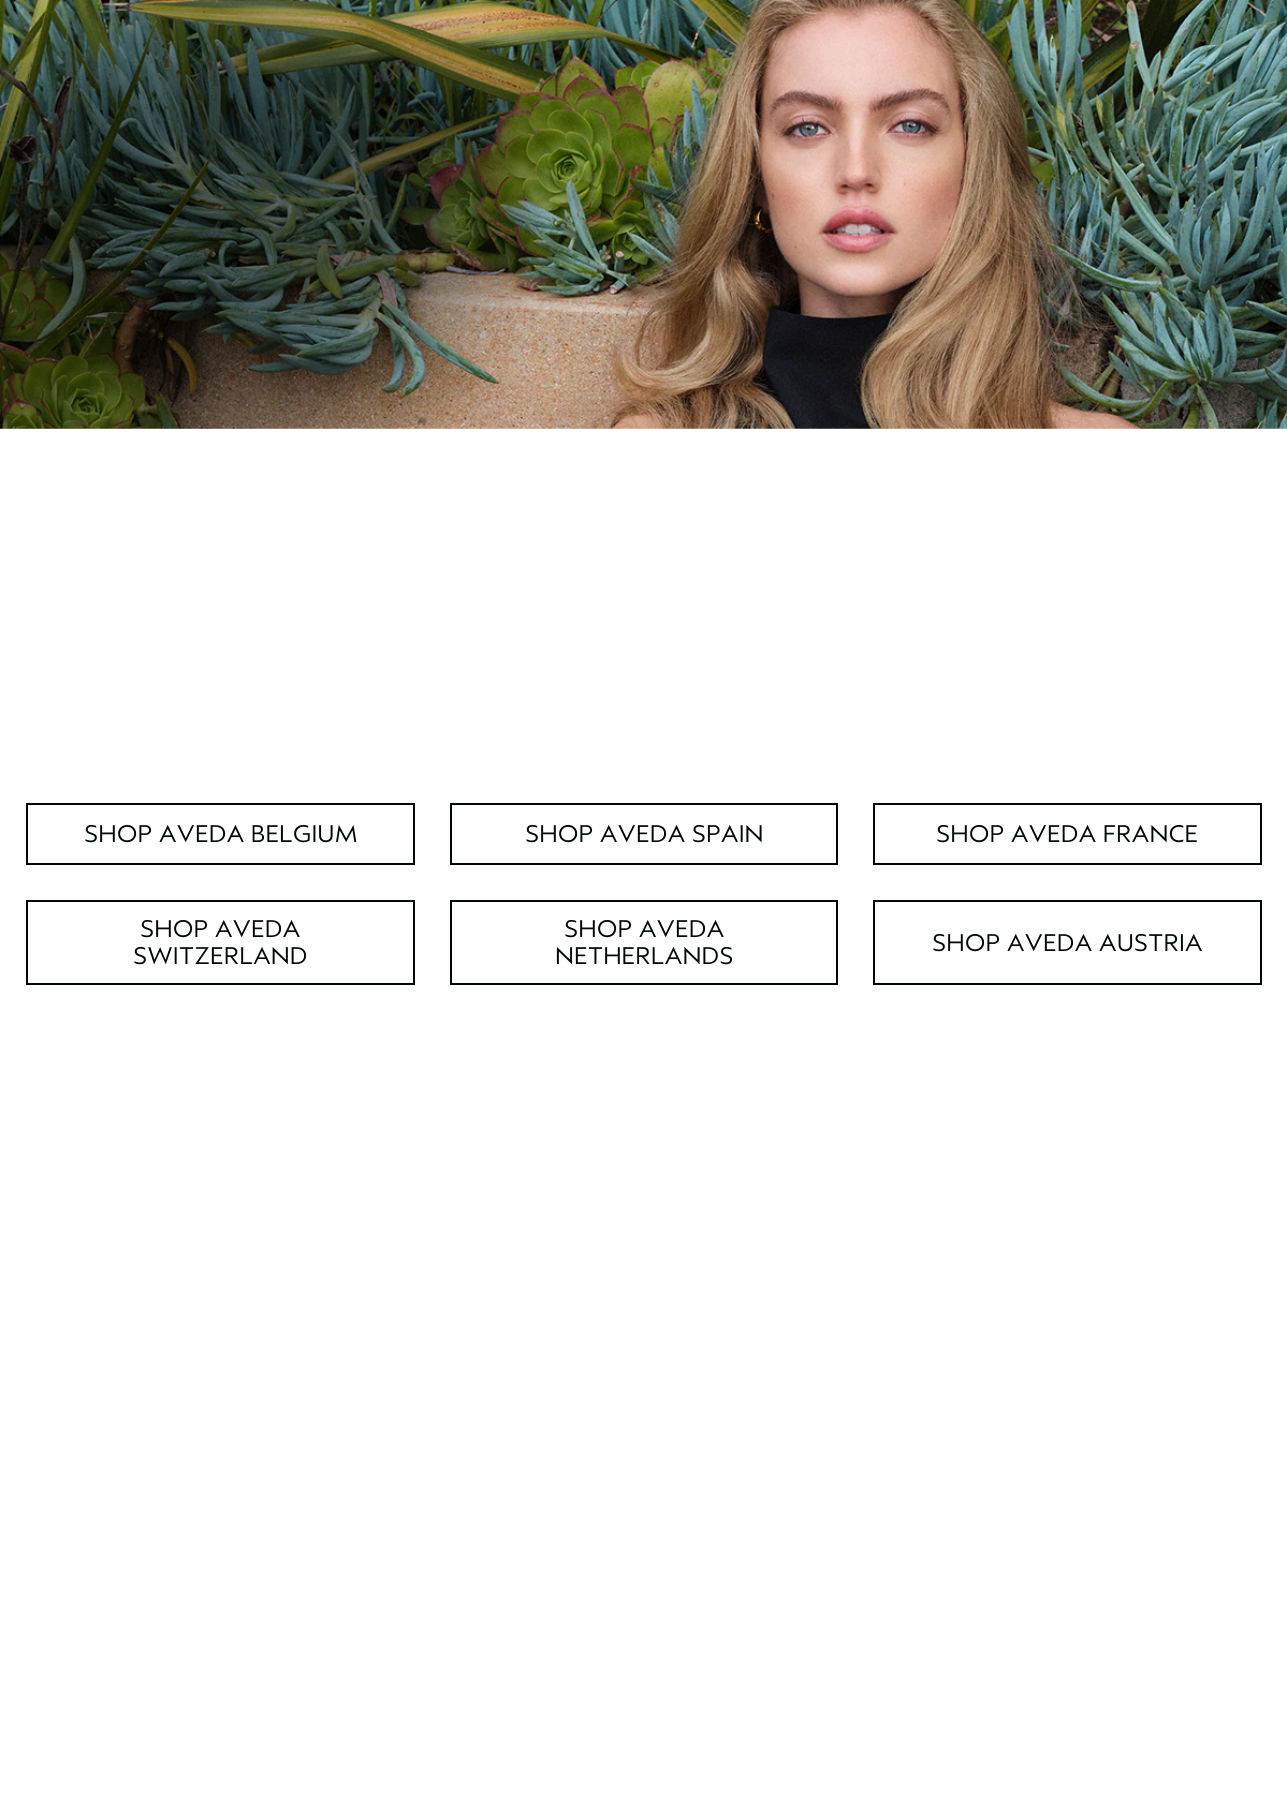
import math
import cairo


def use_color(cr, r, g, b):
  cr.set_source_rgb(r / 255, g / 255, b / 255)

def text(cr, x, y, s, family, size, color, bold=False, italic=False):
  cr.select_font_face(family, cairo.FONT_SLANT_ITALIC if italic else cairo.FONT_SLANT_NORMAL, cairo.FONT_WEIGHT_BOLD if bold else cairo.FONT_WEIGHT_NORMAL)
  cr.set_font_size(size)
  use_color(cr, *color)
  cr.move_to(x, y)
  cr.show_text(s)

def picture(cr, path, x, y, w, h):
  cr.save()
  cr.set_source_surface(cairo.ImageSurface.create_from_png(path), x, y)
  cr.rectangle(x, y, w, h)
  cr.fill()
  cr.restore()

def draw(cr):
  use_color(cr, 255, 255, 255)
  cr.paint()
  picture(cr, "img_01.png", 0, 0, 1287, 429)
  cr.rectangle(27, 804, 387, 60)
  use_color(cr, 0, 9, 7)
  cr.stroke()
  cr.rectangle(451, 804, 386, 60)
  cr.stroke()
  cr.rectangle(874, 804, 387, 60)
  cr.stroke()
  cr.rectangle(27, 901, 387, 83)
  cr.stroke()
  cr.rectangle(451, 901, 386, 83)
  cr.stroke()
  cr.rectangle(874, 901, 387, 83)
  cr.stroke()
  text(cr, 84, 842, "SHOP AVEDA BELGIUM", "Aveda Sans", 24.5, (0, 9, 7))
  text(cr, 525, 842, "SHOP AVEDA SPAIN", "Aveda Sans", 24.5, (0, 9, 7))
  text(cr, 936, 842, "SHOP AVEDA FRANCE", "Aveda Sans", 24.5, (0, 9, 7))
  text(cr, 140, 937, "SHOP AVEDA", "Aveda Sans", 24.5, (0, 9, 7))
  text(cr, 133, 964, "SWITZERLAND", "Aveda Sans", 24.5, (0, 9, 7))
  text(cr, 564, 937, "SHOP AVEDA", "Aveda Sans", 24.5, (0, 9, 7))
  text(cr, 555, 964, "NETHERLANDS", "Aveda Sans", 24.5, (0, 9, 7))
  text(cr, 932, 951, "SHOP AVEDA AUSTRIA", "Aveda Sans", 24.5, (0, 9, 7))


surface = cairo.ImageSurface(cairo.FORMAT_RGB24, 1287, 1813)
cr = cairo.Context(surface)
options = cairo.FontOptions()
options.set_hint_metrics(cairo.HINT_METRICS_OFF)
options.set_hint_style(cairo.HINT_STYLE_NONE)
cr.set_font_options(options)
cr.set_miter_limit(4)
draw(cr)
surface.write_to_png("out.png")
